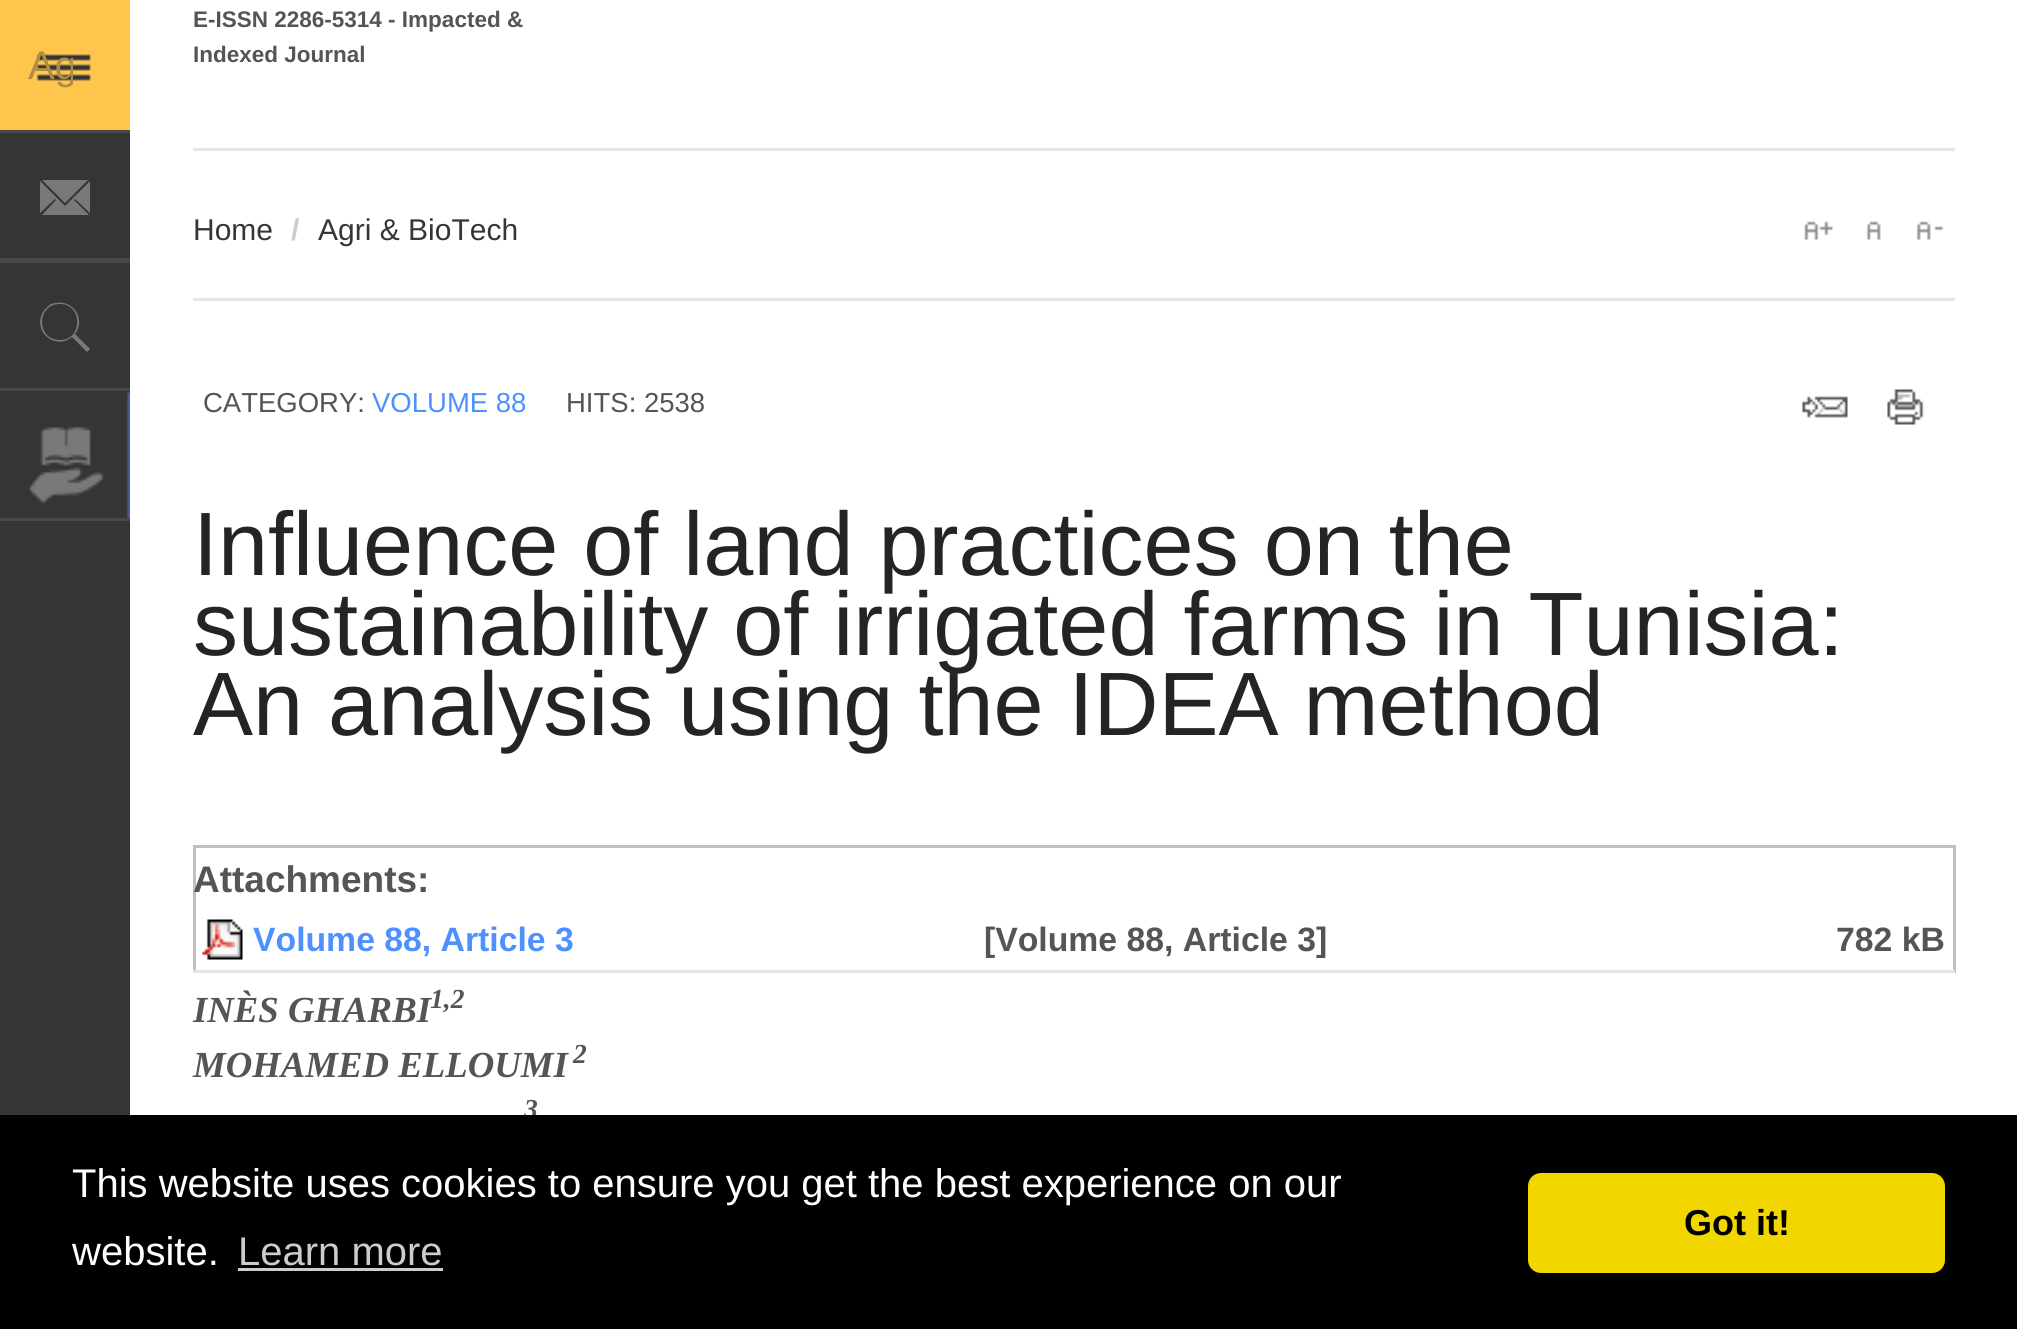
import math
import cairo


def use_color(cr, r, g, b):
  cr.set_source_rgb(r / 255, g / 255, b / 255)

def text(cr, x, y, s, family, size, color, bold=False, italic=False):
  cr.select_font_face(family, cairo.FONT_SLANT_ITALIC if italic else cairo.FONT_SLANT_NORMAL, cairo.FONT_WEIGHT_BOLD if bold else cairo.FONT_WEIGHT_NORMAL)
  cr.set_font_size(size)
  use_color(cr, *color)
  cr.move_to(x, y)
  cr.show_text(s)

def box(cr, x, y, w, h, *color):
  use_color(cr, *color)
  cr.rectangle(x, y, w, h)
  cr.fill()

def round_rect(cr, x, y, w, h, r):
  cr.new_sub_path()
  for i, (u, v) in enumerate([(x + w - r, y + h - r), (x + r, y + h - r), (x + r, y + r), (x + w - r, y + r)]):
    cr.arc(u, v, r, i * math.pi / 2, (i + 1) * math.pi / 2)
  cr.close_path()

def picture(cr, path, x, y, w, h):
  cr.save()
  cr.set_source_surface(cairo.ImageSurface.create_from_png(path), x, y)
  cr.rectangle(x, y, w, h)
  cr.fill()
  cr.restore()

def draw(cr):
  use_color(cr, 53, 53, 53)
  cr.paint()
  box(cr, 130, 0, 1887, 1115, 255, 255, 255)
  picture(cr, "img_01.png", 0, 0, 130, 130)
  box(cr, 0, 130, 130, 3, 72, 72, 72)
  box(cr, 0, 258, 130, 5, 72, 72, 72)
  use_color(cr, 121, 121, 121)
  cr.new_path()
  cr.move_to(88, 180)
  cr.line_to(42, 180)
  cr.line_to(65, 203)
  cr.close_path()
  cr.move_to(90, 213)
  cr.line_to(90, 181)
  cr.line_to(65, 206)
  cr.line_to(40, 181)
  cr.line_to(40, 213)
  cr.line_to(55, 199)
  cr.line_to(56, 200)
  cr.line_to(42, 215)
  cr.line_to(89, 215)
  cr.line_to(74, 200)
  cr.line_to(75, 199)
  cr.close_path()
  cr.fill()
  box(cr, 0, 388, 130, 3, 72, 72, 72)
  use_color(cr, 121, 121, 121)
  cr.new_path()
  cr.move_to(75, 334)
  cr.curve_to(82, 325, 80, 311, 69, 305)
  cr.curve_to(64, 302, 57, 302, 51, 304)
  cr.curve_to(48, 306, 45, 309, 43, 312)
  cr.curve_to(32, 331, 55, 351, 72, 337)
  cr.line_to(87, 352)
  cr.line_to(90, 349)
  cr.close_path()
  cr.move_to(60, 340)
  cr.curve_to(36, 340, 36, 304, 60, 304)
  cr.curve_to(83, 304, 83, 340, 60, 340)
  cr.close_path()
  cr.fill()
  picture(cr, "img_02.png", 29, 391, 101, 127)
  box(cr, 0, 518, 130, 3, 72, 72, 72)
  box(cr, 193, 148, 1762, 3, 229, 229, 229)
  box(cr, 193, 298, 1762, 3, 229, 229, 229)
  picture(cr, "img_03.png", 1804, 221, 29, 19)
  picture(cr, "img_04.png", 1866, 221, 15, 19)
  picture(cr, "img_05.png", 1916, 221, 28, 19)
  picture(cr, "img_06.png", 1802, 396, 46, 22)
  picture(cr, "img_07.png", 1887, 389, 37, 36)
  box(cr, 193, 845, 1762, 3, 192, 192, 192)
  box(cr, 1953, 845, 3, 128, 192, 192, 192)
  box(cr, 193, 845, 3, 128, 192, 192, 192)
  picture(cr, "img_08.png", 202, 919, 41, 41)
  box(cr, 193, 970, 1762, 3, 229, 229, 229)
  text(cr, 193, 27, "E-ISSN 2286-5314 - Impacted &", "Liberation Sans", 22.5, (85, 85, 85), bold=True)
  text(cr, 193, 62, "Indexed Journal", "Liberation Sans", 22.5, (85, 85, 85), bold=True)
  cr.save()
  cr.rectangle(28, 43, 45, 47)
  cr.clip()
  text(cr, 28, 79, "Ag", "Liberation Sans", 40, (176, 141, 68))
  cr.restore()
  text(cr, 193, 240, "Home", "Liberation Sans", 30, (54, 54, 54))
  text(cr, 291, 240, "/", "Liberation Sans", 30, (204, 204, 204), bold=True)
  text(cr, 318, 240, "Agri & BioTech", "Liberation Sans", 30, (54, 54, 54))
  text(cr, 203, 412, "CATEGORY:", "Liberation Sans", 27.5, (85, 85, 85))
  text(cr, 372, 412, "VOLUME 88", "Liberation Sans", 27.5, (77, 144, 254))
  text(cr, 566, 412, "HITS: 2538", "Liberation Sans", 27.5, (85, 85, 85))
  text(cr, 193, 575, "Influence of land practices on the", "Liberation Sans", 90, (36, 36, 36))
  text(cr, 193, 655, "sustainability of irrigated farms in Tunisia:", "Liberation Sans", 90, (36, 36, 36))
  text(cr, 193, 735, "An analysis using the IDEA method", "Liberation Sans", 90, (36, 36, 36))
  text(cr, 193, 892, "Attachments:", "Liberation Sans", 37, (85, 85, 85), bold=True)
  text(cr, 253, 951, "Volume 88, Article 3", "Liberation Sans", 33.75, (77, 144, 254), bold=True)
  text(cr, 984, 951, "[Volume 88, Article 3]", "Liberation Sans", 33.75, (85, 85, 85), bold=True)
  text(cr, 1836, 951, "782 kB", "Liberation Sans", 33.75, (85, 85, 85), bold=True)
  text(cr, 193, 1022, "INÈS GHARBI", "Liberation Serif", 36.75, (85, 85, 85), bold=True, italic=True)
  text(cr, 430, 1008, "1,2", "Liberation Serif", 27.5, (85, 85, 85), bold=True, italic=True)
  text(cr, 193, 1077, "MOHAMED ELLOUMI", "Liberation Serif", 36.75, (85, 85, 85), bold=True, italic=True)
  text(cr, 573, 1063, "2", "Liberation Serif", 27.5, (85, 85, 85), bold=True, italic=True)
  text(cr, 524, 1118, "3", "Liberation Serif", 27.5, (85, 85, 85), bold=True, italic=True)
  box(cr, 0, 1115, 2017, 214, 0, 0, 0)
  text(cr, 72, 1197, "This website uses cookies to ensure you get the best experience on our", "Liberation Sans", 40, (255, 255, 255))
  text(cr, 72, 1265, "website.", "Liberation Sans", 40, (255, 255, 255))
  text(cr, 238, 1265, "Learn more", "Liberation Sans", 40, (204, 204, 204))
  box(cr, 238, 1268, 205, 3, 204, 204, 204)
  use_color(cr, 241, 214, 0)
  round_rect(cr, 1528, 1173, 417, 100, 13)
  cr.fill()
  text(cr, 1684, 1235, "Got it!", "Liberation Sans", 36, (0, 0, 0), bold=True)


surface = cairo.ImageSurface(cairo.FORMAT_RGB24, 2017, 1329)
cr = cairo.Context(surface)
options = cairo.FontOptions()
options.set_hint_metrics(cairo.HINT_METRICS_OFF)
options.set_hint_style(cairo.HINT_STYLE_NONE)
cr.set_font_options(options)
cr.set_miter_limit(4)
draw(cr)
surface.write_to_png("out.png")
